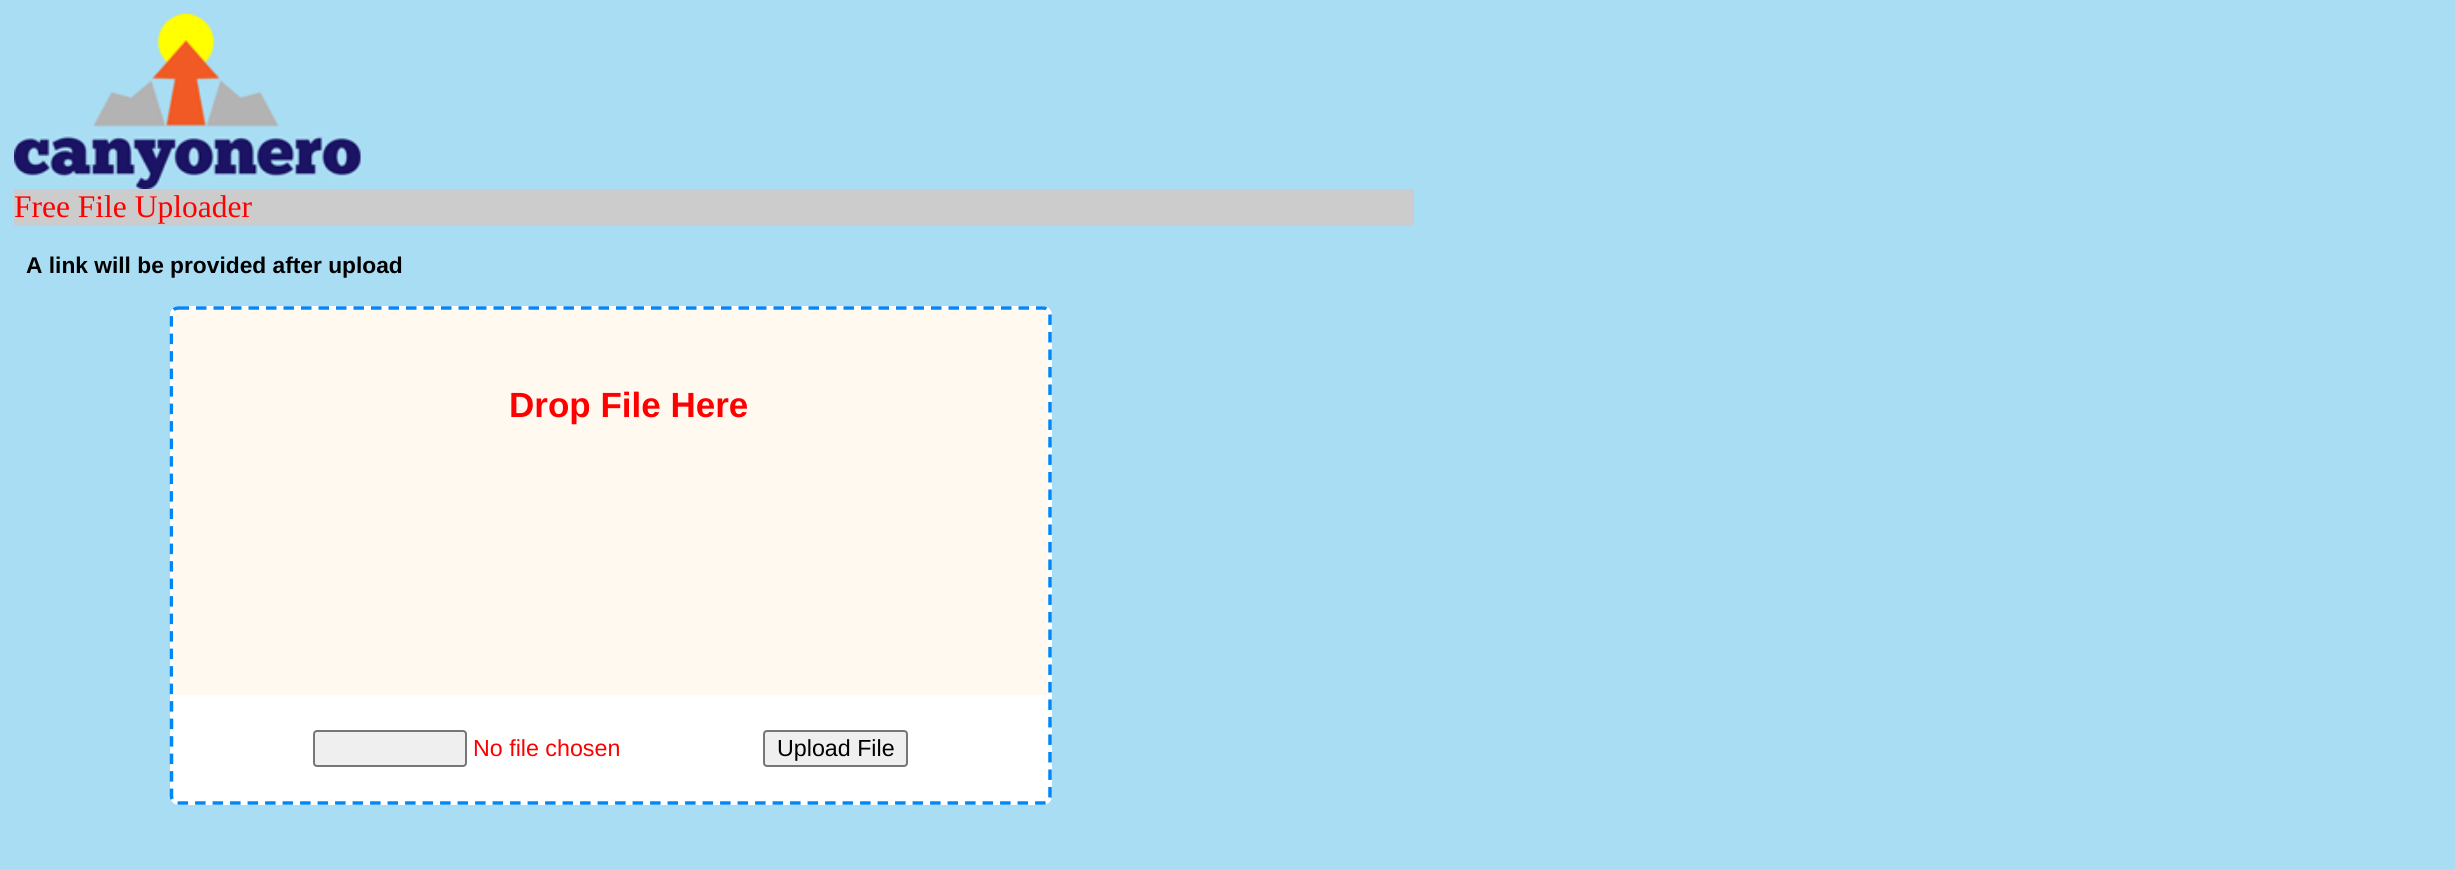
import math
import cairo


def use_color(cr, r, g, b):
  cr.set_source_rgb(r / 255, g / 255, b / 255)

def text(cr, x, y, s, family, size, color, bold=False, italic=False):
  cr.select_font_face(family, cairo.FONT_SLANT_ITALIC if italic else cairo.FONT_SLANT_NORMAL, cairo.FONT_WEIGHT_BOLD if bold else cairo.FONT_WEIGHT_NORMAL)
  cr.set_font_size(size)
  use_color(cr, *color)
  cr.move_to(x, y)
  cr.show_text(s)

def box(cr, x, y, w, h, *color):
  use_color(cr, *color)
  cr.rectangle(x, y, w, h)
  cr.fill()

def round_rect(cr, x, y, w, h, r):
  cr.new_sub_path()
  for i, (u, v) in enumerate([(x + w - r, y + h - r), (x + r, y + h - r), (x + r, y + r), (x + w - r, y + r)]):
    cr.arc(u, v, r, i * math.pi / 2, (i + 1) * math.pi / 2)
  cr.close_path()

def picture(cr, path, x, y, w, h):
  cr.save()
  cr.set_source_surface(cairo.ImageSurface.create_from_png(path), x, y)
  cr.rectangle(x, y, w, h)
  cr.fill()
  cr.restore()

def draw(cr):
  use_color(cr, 169, 221, 243)
  cr.paint()
  picture(cr, "img_01.png", 14, 14, 347, 175)
  box(cr, 14, 189, 1400, 37, 204, 204, 204)
  use_color(cr, 255, 255, 255)
  round_rect(cr, 170, 306, 882, 499, 9)
  cr.fill()
  cr.new_path()
  cr.move_to(178.5, 308)
  cr.line_to(1043, 308)
  cr.curve_to(1047, 308, 1050, 311, 1050, 315)
  cr.line_to(1050, 796)
  cr.curve_to(1050, 800, 1047, 803, 1043, 803)
  cr.line_to(178.5, 803)
  cr.curve_to(174.5, 803, 171.5, 800, 171.5, 796)
  cr.line_to(171.5, 315)
  cr.curve_to(171.5, 311, 174.5, 308, 178.5, 308)
  cr.close_path()
  use_color(cr, 0, 135, 247)
  cr.set_line_width(3.5)
  cr.set_dash([10.5, 7])
  cr.stroke()
  use_color(cr, 255, 249, 240)
  cr.new_path()
  cr.move_to(178, 310)
  cr.line_to(1043, 310)
  cr.curve_to(1046, 310, 1048, 312, 1048, 315)
  cr.line_to(1048, 695)
  cr.line_to(173, 695)
  cr.line_to(173, 315)
  cr.curve_to(173, 312, 175, 310, 178, 310)
  cr.close_path()
  cr.fill()
  use_color(cr, 239, 239, 239)
  round_rect(cr, 314, 731, 152, 35, 3)
  cr.fill_preserve()
  use_color(cr, 118, 118, 118)
  cr.set_line_width(2)
  cr.set_dash([])
  cr.stroke()
  use_color(cr, 239, 239, 239)
  round_rect(cr, 764, 731, 143, 35, 3)
  cr.fill_preserve()
  use_color(cr, 118, 118, 118)
  cr.stroke()
  text(cr, 14, 217, "Free File Uploader", "Liberation Serif", 31.5, (255, 0, 0))
  text(cr, 26, 273, "A link will be provided after upload", "Liberation Sans", 22.75, (0, 0, 0), bold=True)
  text(cr, 509, 417, "Drop File Here", "Liberation Sans", 35, (255, 0, 0), bold=True)
  text(cr, 473, 756, "No file chosen", "Liberation Sans", 23.25, (255, 0, 0))
  text(cr, 777, 756, "Upload File", "Liberation Sans", 23.25, (0, 0, 0))


surface = cairo.ImageSurface(cairo.FORMAT_RGB24, 2455, 869)
cr = cairo.Context(surface)
options = cairo.FontOptions()
options.set_hint_metrics(cairo.HINT_METRICS_OFF)
options.set_hint_style(cairo.HINT_STYLE_NONE)
cr.set_font_options(options)
cr.set_miter_limit(4)
draw(cr)
surface.write_to_png("out.png")
